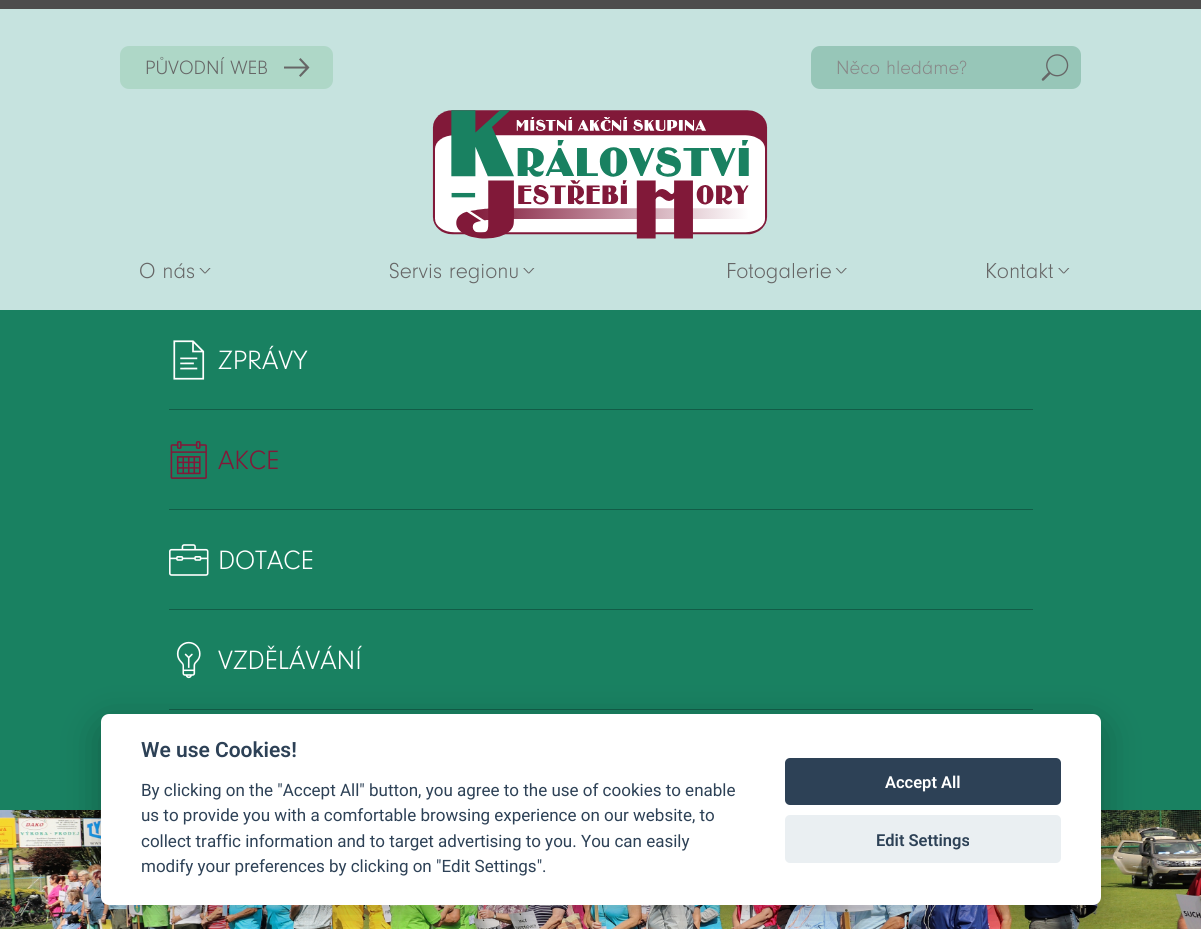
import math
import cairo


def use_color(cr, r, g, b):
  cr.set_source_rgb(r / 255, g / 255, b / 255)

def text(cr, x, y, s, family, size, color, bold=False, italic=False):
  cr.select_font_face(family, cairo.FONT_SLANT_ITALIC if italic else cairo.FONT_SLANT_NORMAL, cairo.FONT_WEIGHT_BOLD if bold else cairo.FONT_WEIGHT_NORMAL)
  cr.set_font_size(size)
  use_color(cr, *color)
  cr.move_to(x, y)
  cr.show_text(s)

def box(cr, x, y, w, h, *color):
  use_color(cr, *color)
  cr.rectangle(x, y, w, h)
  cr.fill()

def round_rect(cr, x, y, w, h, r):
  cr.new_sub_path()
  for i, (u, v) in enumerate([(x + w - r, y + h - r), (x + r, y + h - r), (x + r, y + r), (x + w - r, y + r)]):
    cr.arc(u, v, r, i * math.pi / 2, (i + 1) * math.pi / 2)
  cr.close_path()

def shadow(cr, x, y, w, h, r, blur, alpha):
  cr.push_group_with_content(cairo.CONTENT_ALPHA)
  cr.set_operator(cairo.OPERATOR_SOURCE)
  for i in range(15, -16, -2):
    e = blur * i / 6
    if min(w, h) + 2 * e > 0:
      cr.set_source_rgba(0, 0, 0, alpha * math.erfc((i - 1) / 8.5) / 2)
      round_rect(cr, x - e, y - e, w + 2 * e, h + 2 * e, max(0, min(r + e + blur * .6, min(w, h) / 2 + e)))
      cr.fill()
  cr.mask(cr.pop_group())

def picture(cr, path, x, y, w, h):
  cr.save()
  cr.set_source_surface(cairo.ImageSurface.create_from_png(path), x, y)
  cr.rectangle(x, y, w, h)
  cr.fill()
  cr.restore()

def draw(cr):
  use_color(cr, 198, 227, 223)
  cr.paint()
  box(cr, 0, 0, 1201, 9, 77, 77, 77)
  use_color(cr, 174, 215, 199)
  round_rect(cr, 120, 46, 213, 43, 9)
  cr.fill()
  use_color(cr, 102, 102, 102)
  cr.new_path()
  cr.move_to(300.5, 58)
  cr.line_to(299, 59.5)
  cr.line_to(305.5, 66.5)
  cr.line_to(284, 66.5)
  cr.line_to(284, 68.5)
  cr.line_to(305.5, 68.5)
  cr.line_to(299, 75.5)
  cr.line_to(300.5, 77)
  cr.line_to(309.5, 67.5)
  cr.close_path()
  cr.fill()
  use_color(cr, 151, 198, 184)
  round_rect(cr, 811, 46, 270, 43, 9)
  cr.fill()
  picture(cr, "img_01.png", 1041, 54, 28, 27)
  picture(cr, "img_02.png", 432, 110, 336, 129)
  picture(cr, "img_03.png", 199, 268, 12, 6)
  picture(cr, "img_04.png", 523, 268, 12, 6)
  picture(cr, "img_05.png", 835, 268, 12, 6)
  picture(cr, "img_04.png", 1058, 268, 12, 6)
  box(cr, 0, 310, 1201, 500, 25, 129, 97)
  box(cr, 169, 409, 864, 1, 18, 93, 71)
  picture(cr, "img_06.png", 173, 340, 32, 40)
  box(cr, 169, 509, 864, 1, 18, 93, 71)
  picture(cr, "img_07.png", 170, 441, 37, 38)
  box(cr, 169, 609, 864, 1, 18, 93, 71)
  picture(cr, "img_08.png", 169, 544, 40, 32)
  box(cr, 169, 709, 864, 1, 18, 93, 71)
  picture(cr, "img_09.png", 176, 641, 25, 38)
  picture(cr, "img_10.png", 0, 810, 1201, 119)
  use_color(cr, 2, 2, 3)
  shadow(cr, 101, 726, 1000, 192, 8, 19, 0.28)
  use_color(cr, 255, 255, 255)
  round_rect(cr, 101, 714, 1000, 191, 8)
  cr.fill()
  use_color(cr, 45, 65, 86)
  round_rect(cr, 785, 758, 276, 47, 5)
  cr.fill()
  use_color(cr, 234, 239, 242)
  round_rect(cr, 785, 815, 276, 48, 5)
  cr.fill()
  text(cr, 145, 74, "PŮVODNÍ WEB", "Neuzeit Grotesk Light", 20, (102, 102, 102))
  text(cr, 836, 74, "Něco hledáme?", "Neuzeit Grotesk Light", 20, (136, 136, 136))
  text(cr, 139, 278, "O nás", "Neuzeit Grotesk Light", 22.5, (102, 102, 102))
  text(cr, 389, 278, "Servis regionu", "Neuzeit Grotesk Light", 22.5, (102, 102, 102))
  text(cr, 726, 278, "Fotogalerie", "Neuzeit Grotesk Light", 22.5, (102, 102, 102))
  text(cr, 985, 278, "Kontakt", "Neuzeit Grotesk Light", 22.5, (102, 102, 102))
  text(cr, 218, 369, "ZPRÁVY", "Neuzeit Grotesk Light", 27.5, (255, 255, 255))
  text(cr, 218, 469, "AKCE", "Neuzeit Grotesk Light", 27.5, (129, 25, 57))
  text(cr, 218, 569, "DOTACE", "Neuzeit Grotesk Light", 27.5, (255, 255, 255))
  text(cr, 218, 669, "VZDĚLÁVÁNÍ", "Neuzeit Grotesk Light", 27.5, (255, 255, 255))
  text(cr, 141, 757, "We use Cookies!", "Roboto SemiBold", 21, (45, 65, 86))
  text(cr, 141, 796, "By clicking on the \"Accept All\" button, you agree to the use of cookies to enable", "Roboto", 17, (45, 65, 86))
  text(cr, 141, 821, "us to provide you with a comfortable browsing experience on our website, to", "Roboto", 17, (45, 65, 86))
  text(cr, 141, 847, "collect traffic information and to target advertising to you. You can easily", "Roboto", 17, (45, 65, 86))
  text(cr, 141, 872, "modify your preferences by clicking on \"Edit Settings\".", "Roboto", 17, (45, 65, 86))
  text(cr, 885, 788, "Accept All", "Roboto SemiBold", 16.5, (255, 255, 255))
  text(cr, 876, 846, "Edit Settings", "Roboto SemiBold", 16.5, (45, 65, 86))


surface = cairo.ImageSurface(cairo.FORMAT_RGB24, 1201, 929)
cr = cairo.Context(surface)
options = cairo.FontOptions()
options.set_hint_metrics(cairo.HINT_METRICS_OFF)
options.set_hint_style(cairo.HINT_STYLE_NONE)
cr.set_font_options(options)
cr.set_miter_limit(4)
draw(cr)
surface.write_to_png("out.png")
